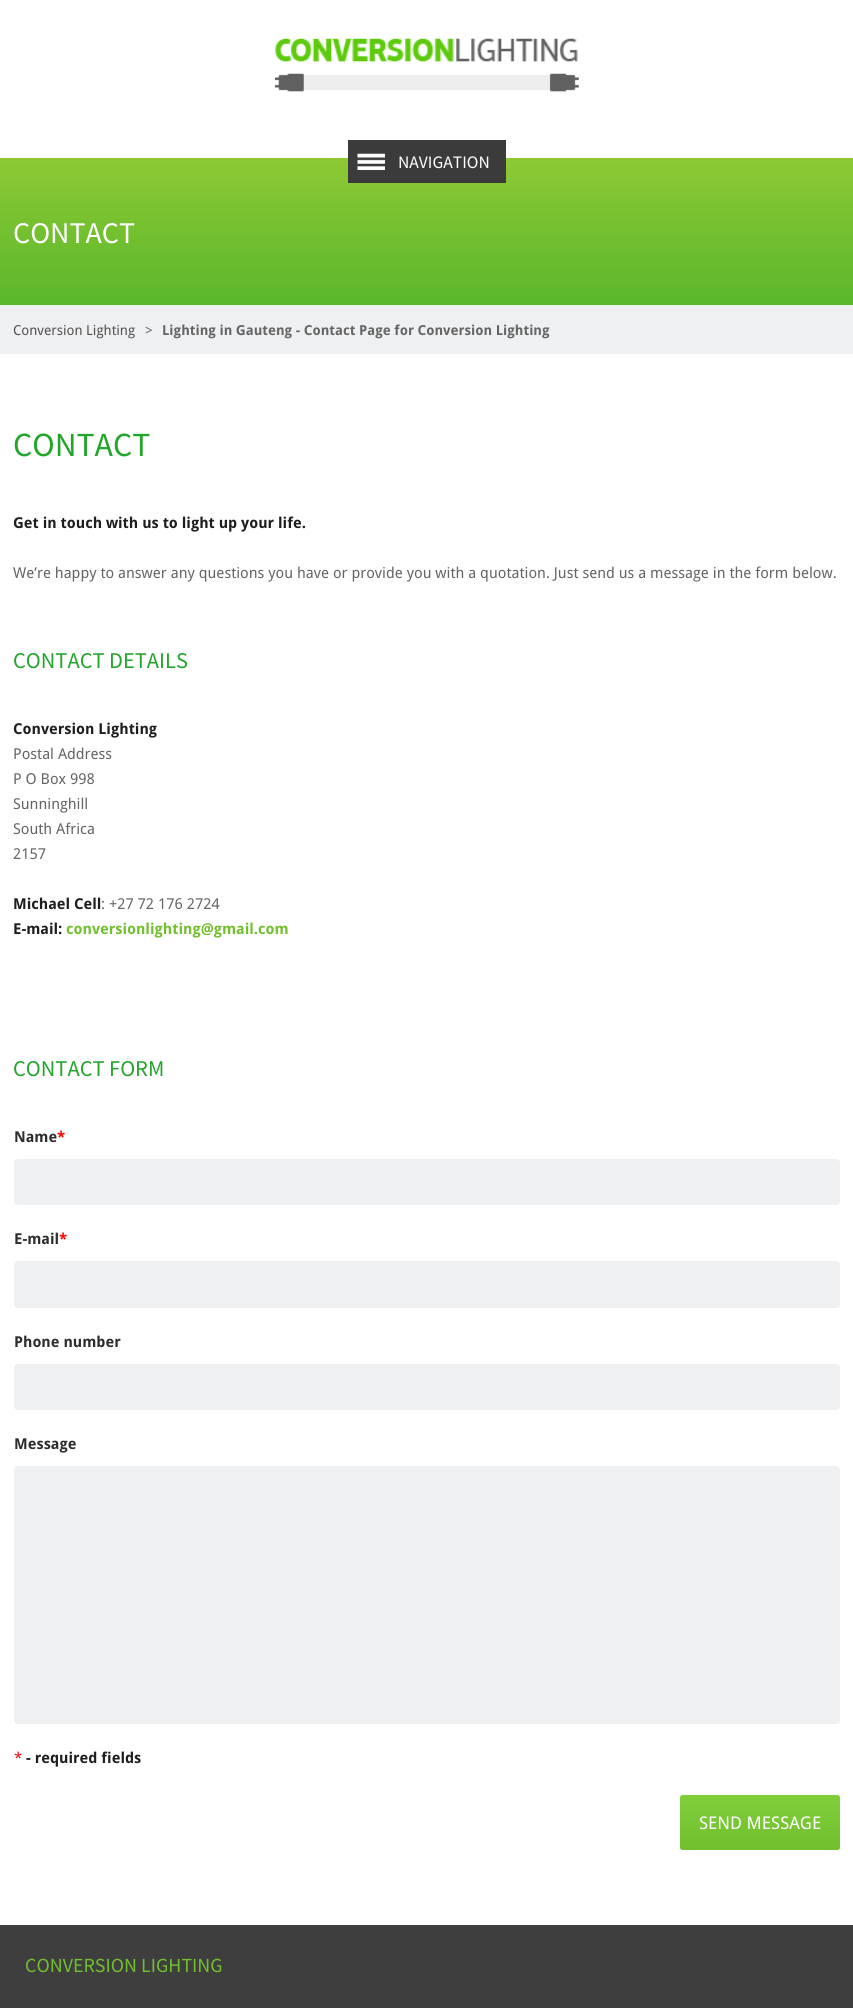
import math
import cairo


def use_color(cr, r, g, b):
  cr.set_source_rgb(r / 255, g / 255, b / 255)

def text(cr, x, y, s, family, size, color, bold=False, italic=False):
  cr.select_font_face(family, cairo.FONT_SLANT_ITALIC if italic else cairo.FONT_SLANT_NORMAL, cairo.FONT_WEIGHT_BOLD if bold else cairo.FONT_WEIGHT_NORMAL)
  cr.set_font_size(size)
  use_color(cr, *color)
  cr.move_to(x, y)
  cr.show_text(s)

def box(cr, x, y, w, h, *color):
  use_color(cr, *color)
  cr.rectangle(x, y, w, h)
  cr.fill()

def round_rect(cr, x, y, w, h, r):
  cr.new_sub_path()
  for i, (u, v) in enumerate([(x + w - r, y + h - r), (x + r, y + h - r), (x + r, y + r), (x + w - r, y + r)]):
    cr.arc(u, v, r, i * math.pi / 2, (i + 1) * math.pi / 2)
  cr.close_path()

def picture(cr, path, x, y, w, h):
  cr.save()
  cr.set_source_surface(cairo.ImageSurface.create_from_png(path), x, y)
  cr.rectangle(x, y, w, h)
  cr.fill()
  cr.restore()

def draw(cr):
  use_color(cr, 255, 255, 255)
  cr.paint()
  box(cr, 0, 158, 853, 2, 142, 201, 52)
  picture(cr, "img_01.png", 275, 38, 304, 54)
  gradient = cairo.LinearGradient(427, 160, 427, 305)
  gradient.add_color_stop_rgba(0, 0.553, 0.788, 0.204, 1)
  gradient.add_color_stop_rgba(1, 0.353, 0.718, 0.169, 1)
  cr.set_source(gradient)
  cr.rectangle(0, 160, 853, 145)
  cr.fill()
  box(cr, 348, 140, 158, 43, 59, 59, 59)
  picture(cr, "img_02.png", 357, 153, 28, 17)
  box(cr, 0, 305, 853, 49, 238, 240, 242)
  round_rect(cr, 14.5, 1159.5, 825, 45, 3.5)
  cr.fill_preserve()
  cr.set_line_width(1)
  cr.stroke()
  round_rect(cr, 14.5, 1261.5, 825, 46, 3.5)
  cr.fill_preserve()
  cr.stroke()
  round_rect(cr, 14.5, 1364.5, 825, 45, 3.5)
  cr.fill_preserve()
  cr.stroke()
  round_rect(cr, 14.5, 1466.5, 825, 257, 3.5)
  cr.fill_preserve()
  cr.stroke()
  gradient = cairo.LinearGradient(680, 1850, 680, 1795)
  gradient.add_color_stop_rgba(0, 0.447, 0.749, 0.184, 1)
  gradient.add_color_stop_rgba(1, 0.498, 0.808, 0.224, 1)
  cr.set_source(gradient)
  round_rect(cr, 680, 1795, 160, 55, 2.5)
  cr.fill()
  box(cr, 0, 1925, 853, 83, 62, 62, 62)
  text(cr, 398, 168, "NAVIGATION", "Source Sans Pro", 17.5, (255, 255, 255))
  text(cr, 13, 243, "CONTACT", "Source Sans Pro", 30, (255, 255, 255))
  text(cr, 13, 335, "Conversion Lighting", "Droid Sans", 13.75, (84, 81, 81))
  text(cr, 145, 335, ">", "Droid Sans", 13.75, (101, 101, 101))
  text(cr, 162, 335, "Lighting in Gauteng - Contact Page for Conversion Lighting", "Droid Sans", 13.75, (101, 101, 101), bold=True)
  text(cr, 13, 456, "CONTACT", "Source Sans Pro", 33.75, (35, 164, 43))
  text(cr, 13, 528, "Get in touch with us to light up your life.", "Droid Sans", 15, (30, 30, 30), bold=True)
  text(cr, 13, 578, "We’re happy to answer any questions you have or provide you with a quotation. Just send us a message in the form below.", "Droid Sans", 15, (101, 101, 101))
  text(cr, 13, 668, "CONTACT DETAILS", "Source Sans Pro", 22.5, (35, 164, 43))
  text(cr, 13, 734, "Conversion Lighting", "Droid Sans", 15, (30, 30, 30), bold=True)
  text(cr, 13, 759, "Postal Address", "Droid Sans", 15, (101, 101, 101))
  text(cr, 13, 784, "P O Box 998", "Droid Sans", 15, (101, 101, 101))
  text(cr, 13, 809, "Sunninghill", "Droid Sans", 15, (101, 101, 101))
  text(cr, 13, 834, "South Africa", "Droid Sans", 15, (101, 101, 101))
  text(cr, 13, 859, "2157", "Droid Sans", 15, (101, 101, 101))
  text(cr, 13, 909, "Michael Cell", "Droid Sans", 15, (30, 30, 30), bold=True)
  text(cr, 101, 909, ": +27 72 176 2724", "Droid Sans", 15, (101, 101, 101))
  text(cr, 13, 934, "E-mail:", "Droid Sans", 15, (30, 30, 30), bold=True)
  text(cr, 66, 934, "conversionlighting@gmail.com", "Droid Sans", 15, (114, 191, 47), bold=True)
  text(cr, 13, 1076, "CONTACT FORM", "Source Sans Pro", 22.5, (35, 164, 43))
  text(cr, 14, 1142, "Name", "Droid Sans", 15, (45, 45, 45), bold=True)
  text(cr, 57, 1142, "*", "Droid Sans", 15, (255, 0, 0), bold=True)
  text(cr, 14, 1244, "E-mail", "Droid Sans", 15, (45, 45, 45), bold=True)
  text(cr, 59, 1244, "*", "Droid Sans", 15, (255, 0, 0), bold=True)
  text(cr, 14, 1347, "Phone number", "Droid Sans", 15, (45, 45, 45), bold=True)
  text(cr, 14, 1449, "Message", "Droid Sans", 15, (45, 45, 45), bold=True)
  text(cr, 14, 1763, "*", "Droid Sans", 15, (255, 0, 0))
  text(cr, 26, 1763, "- required fields", "Droid Sans", 15, (30, 30, 30), bold=True)
  text(cr, 699, 1829, "SEND MESSAGE", "Droid Sans", 17.5, (255, 255, 255))
  text(cr, 25, 1972, "CONVERSION LIGHTING", "Source Sans Pro", 20, (114, 191, 47))


surface = cairo.ImageSurface(cairo.FORMAT_RGB24, 853, 2008)
cr = cairo.Context(surface)
options = cairo.FontOptions()
options.set_hint_metrics(cairo.HINT_METRICS_OFF)
options.set_hint_style(cairo.HINT_STYLE_NONE)
cr.set_font_options(options)
cr.set_miter_limit(4)
draw(cr)
surface.write_to_png("out.png")
